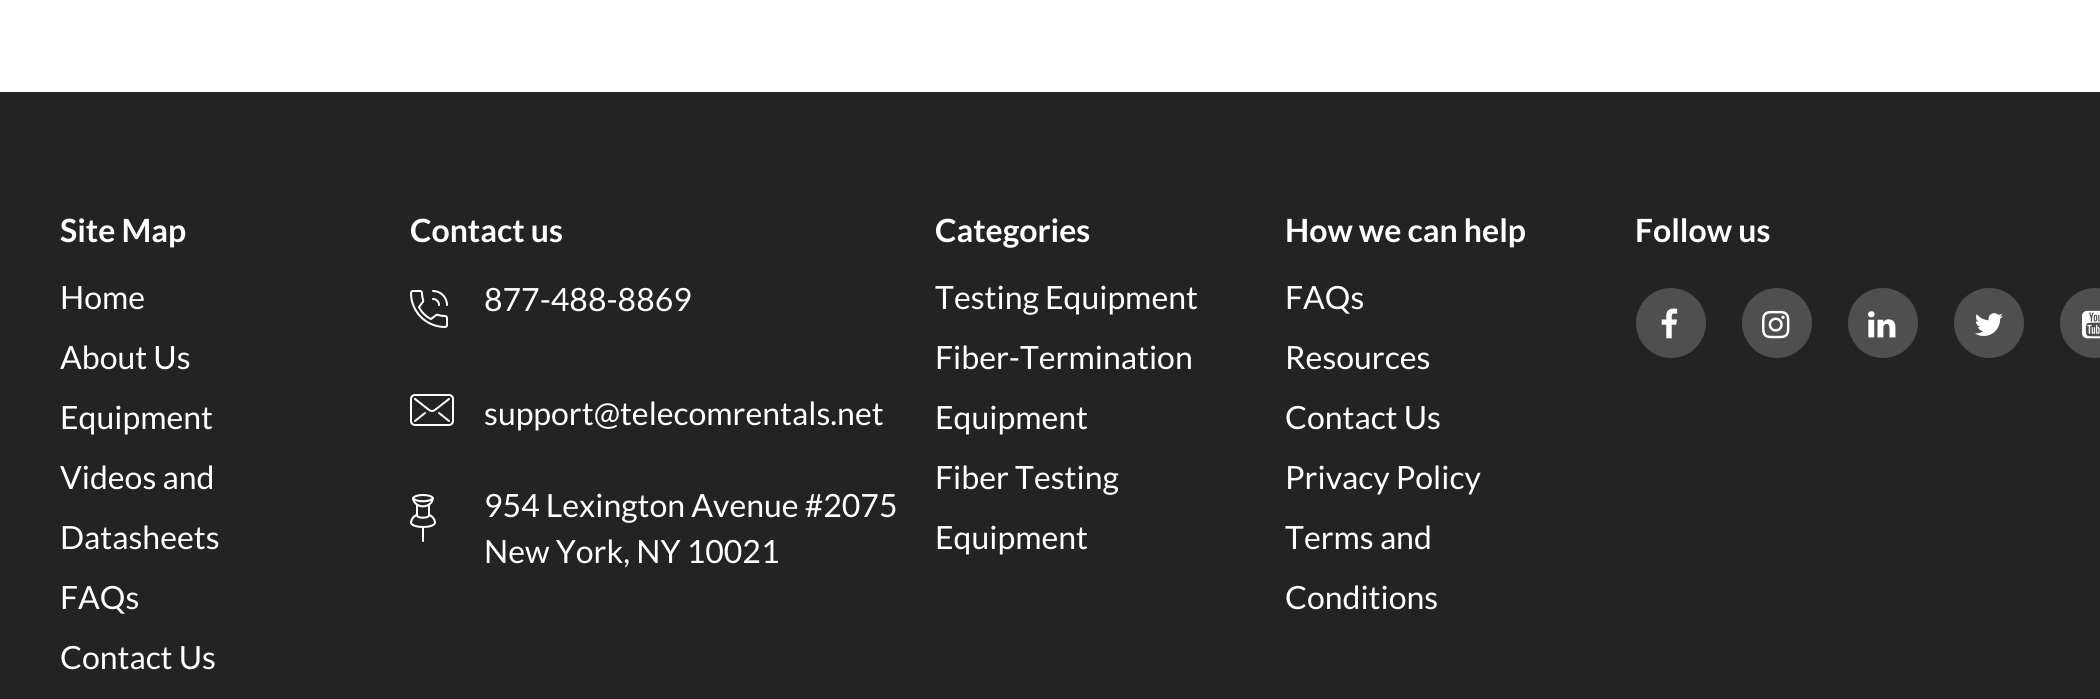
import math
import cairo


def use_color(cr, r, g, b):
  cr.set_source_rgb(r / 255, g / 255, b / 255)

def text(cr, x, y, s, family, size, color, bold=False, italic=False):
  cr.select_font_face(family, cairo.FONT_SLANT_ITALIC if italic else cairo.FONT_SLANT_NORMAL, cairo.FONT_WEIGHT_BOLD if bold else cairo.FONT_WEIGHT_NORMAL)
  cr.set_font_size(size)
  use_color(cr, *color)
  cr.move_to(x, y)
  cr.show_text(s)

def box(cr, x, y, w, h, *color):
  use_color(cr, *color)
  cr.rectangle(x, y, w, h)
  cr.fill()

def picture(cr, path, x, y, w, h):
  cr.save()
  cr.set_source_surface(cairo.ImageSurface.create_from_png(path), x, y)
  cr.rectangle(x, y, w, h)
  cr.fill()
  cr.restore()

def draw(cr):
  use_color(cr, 255, 255, 255)
  cr.paint()
  box(cr, 0, 92, 2100, 607, 35, 35, 35)
  picture(cr, "img_01.png", 410, 290, 38, 38)
  picture(cr, "img_02.png", 410, 394, 44, 32)
  picture(cr, "img_03.png", 410, 494, 26, 48)
  use_color(cr, 79, 79, 79)
  cr.arc(1671, 323, 35, 0, 2 * math.pi)
  cr.fill()
  picture(cr, "img_04.png", 1661, 308, 17, 31)
  cr.arc(1777, 323, 35, 0, 2 * math.pi)
  cr.fill()
  picture(cr, "img_05.png", 1762, 310, 28, 29)
  cr.arc(1883, 323, 35, 0, 2 * math.pi)
  cr.fill()
  picture(cr, "img_06.png", 1868, 311, 28, 27)
  cr.arc(1989, 323, 35, 0, 2 * math.pi)
  cr.fill()
  picture(cr, "img_07.png", 1975, 313, 28, 23)
  cr.arc(2095, 323, 35, 0, 2 * math.pi)
  cr.fill()
  picture(cr, "img_08.png", 2082, 310, 18, 29)
  text(cr, 60, 242, "Site Map", "Lato", 32, (255, 255, 255), bold=True)
  text(cr, 60, 309, "Home", "Lato", 32, (255, 255, 255))
  text(cr, 60, 369, "About Us", "Lato", 32, (255, 255, 255))
  text(cr, 60, 429, "Equipment", "Lato", 32, (255, 255, 255))
  text(cr, 60, 489, "Videos and", "Lato", 32, (255, 255, 255))
  text(cr, 60, 549, "Datasheets", "Lato", 32, (255, 255, 255))
  text(cr, 60, 609, "FAQs", "Lato", 32, (255, 255, 255))
  text(cr, 60, 669, "Contact Us", "Lato", 32, (255, 255, 255))
  text(cr, 410, 242, "Contact us", "Lato", 32, (255, 255, 255), bold=True)
  text(cr, 484, 311, "877-488-8869", "Lato", 32, (255, 255, 255))
  text(cr, 484, 425, "support@telecomrentals.net", "Lato", 32, (255, 255, 255))
  text(cr, 484, 517, "954 Lexington Avenue #2075", "Lato", 32, (255, 255, 255))
  text(cr, 484, 563, "New York, NY 10021", "Lato", 32, (255, 255, 255))
  text(cr, 935, 242, "Categories", "Lato", 32, (255, 255, 255), bold=True)
  text(cr, 935, 309, "Testing Equipment", "Lato", 32, (255, 255, 255))
  text(cr, 935, 369, "Fiber-Termination", "Lato", 32, (255, 255, 255))
  text(cr, 935, 429, "Equipment", "Lato", 32, (255, 255, 255))
  text(cr, 935, 489, "Fiber Testing", "Lato", 32, (255, 255, 255))
  text(cr, 935, 549, "Equipment", "Lato", 32, (255, 255, 255))
  text(cr, 1285, 242, "How we can help", "Lato", 32, (255, 255, 255), bold=True)
  text(cr, 1285, 309, "FAQs", "Lato", 32, (255, 255, 255))
  text(cr, 1285, 369, "Resources", "Lato", 32, (255, 255, 255))
  text(cr, 1285, 429, "Contact Us", "Lato", 32, (255, 255, 255))
  text(cr, 1285, 489, "Privacy Policy", "Lato", 32, (255, 255, 255))
  text(cr, 1285, 549, "Terms and", "Lato", 32, (255, 255, 255))
  text(cr, 1285, 609, "Conditions", "Lato", 32, (255, 255, 255))
  text(cr, 1635, 242, "Follow us", "Lato", 32, (255, 255, 255), bold=True)


surface = cairo.ImageSurface(cairo.FORMAT_RGB24, 2100, 699)
cr = cairo.Context(surface)
options = cairo.FontOptions()
options.set_hint_metrics(cairo.HINT_METRICS_OFF)
options.set_hint_style(cairo.HINT_STYLE_NONE)
cr.set_font_options(options)
cr.set_miter_limit(4)
draw(cr)
surface.write_to_png("out.png")
